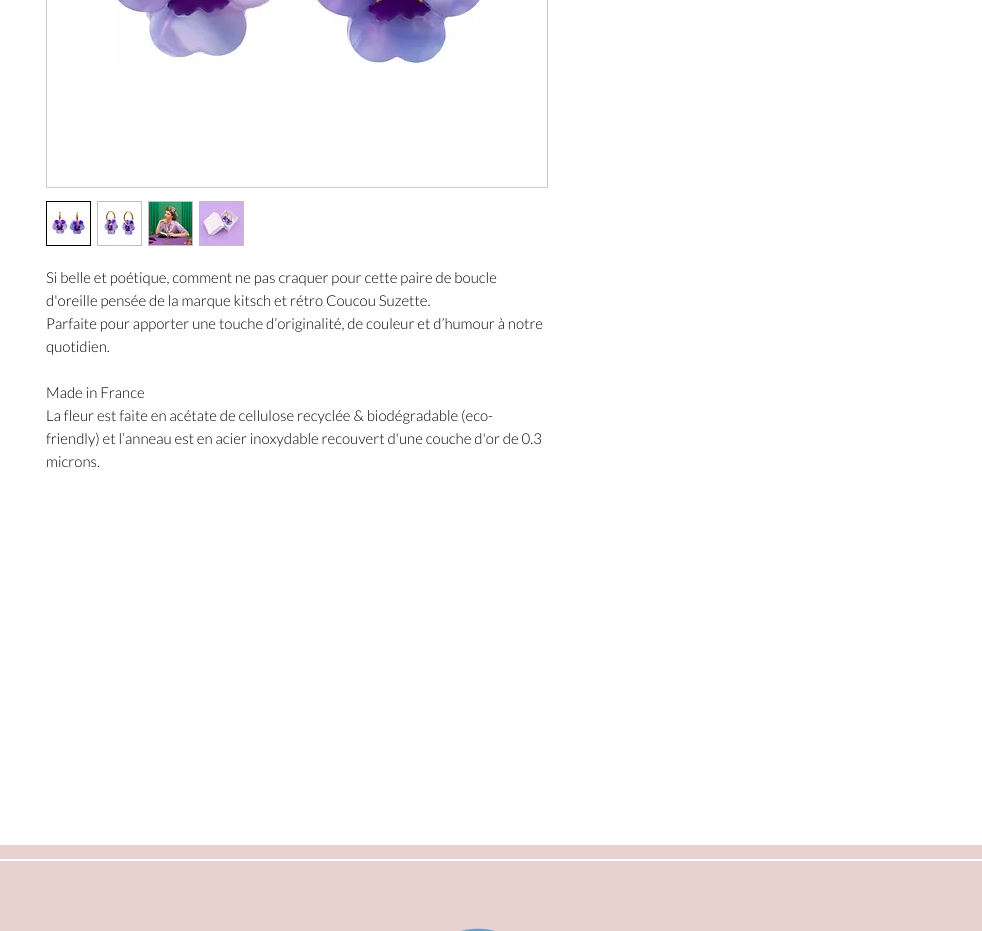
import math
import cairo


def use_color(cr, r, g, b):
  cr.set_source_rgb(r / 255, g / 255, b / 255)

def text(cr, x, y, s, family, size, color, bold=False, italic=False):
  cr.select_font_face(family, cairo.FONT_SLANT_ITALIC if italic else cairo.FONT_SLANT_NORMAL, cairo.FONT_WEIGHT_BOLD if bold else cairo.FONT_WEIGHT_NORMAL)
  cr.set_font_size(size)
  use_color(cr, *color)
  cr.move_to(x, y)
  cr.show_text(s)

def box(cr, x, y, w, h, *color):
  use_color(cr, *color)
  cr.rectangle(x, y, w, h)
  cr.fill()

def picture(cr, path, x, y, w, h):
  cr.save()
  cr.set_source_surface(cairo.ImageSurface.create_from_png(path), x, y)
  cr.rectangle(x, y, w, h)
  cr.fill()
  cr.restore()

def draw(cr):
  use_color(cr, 255, 255, 255)
  cr.paint()
  cr.rectangle(46.5, -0.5, 501, 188)
  use_color(cr, 204, 204, 204)
  cr.set_line_width(1)
  cr.stroke()
  picture(cr, "img_01.png", 115, 0, 367, 64)
  cr.rectangle(46.5, 201.5, 44, 44)
  use_color(cr, 0, 0, 0)
  cr.stroke()
  picture(cr, "img_02.png", 47, 202, 43, 43)
  box(cr, 97, 201, 45, 45, 191, 191, 191)
  picture(cr, "img_03.png", 98, 202, 43, 43)
  box(cr, 148, 201, 45, 45, 191, 191, 191)
  picture(cr, "img_04.png", 149, 202, 43, 43)
  box(cr, 199, 201, 45, 45, 191, 191, 191)
  picture(cr, "img_05.png", 200, 202, 43, 43)
  box(cr, 0, 845, 982, 86, 232, 210, 208)
  box(cr, 0, 859, 982, 2, 255, 255, 255)
  picture(cr, "img_06.png", 461, 928, 34, 3)
  text(cr, 46, 283, "Si belle et poétique, comment ne pas craquer pour cette paire de boucle", "Lato Light", 15, (0, 0, 0))
  text(cr, 46, 306, "d'oreille pensée de la marque kitsch et rétro Coucou Suzette.", "Lato Light", 15, (0, 0, 0))
  text(cr, 46, 329, "Parfaite pour apporter une touche d’originalité, de couleur et d’humour à notre", "Lato Light", 15, (0, 0, 0))
  text(cr, 46, 352, "quotidien.", "Lato Light", 15, (0, 0, 0))
  text(cr, 46, 398, "Made in France", "Lato Light", 15, (0, 0, 0))
  text(cr, 46, 421, "La fleur est faite en acétate de cellulose recyclée & biodégradable (eco-", "Lato Light", 15, (0, 0, 0))
  text(cr, 46, 444, "friendly) et l’anneau est en acier inoxydable recouvert d'une couche d'or de 0.3", "Lato Light", 15, (0, 0, 0))
  text(cr, 46, 467, "microns.", "Lato Light", 15, (0, 0, 0))


surface = cairo.ImageSurface(cairo.FORMAT_RGB24, 982, 931)
cr = cairo.Context(surface)
options = cairo.FontOptions()
options.set_hint_metrics(cairo.HINT_METRICS_OFF)
options.set_hint_style(cairo.HINT_STYLE_NONE)
cr.set_font_options(options)
cr.set_miter_limit(4)
draw(cr)
surface.write_to_png("out.png")
